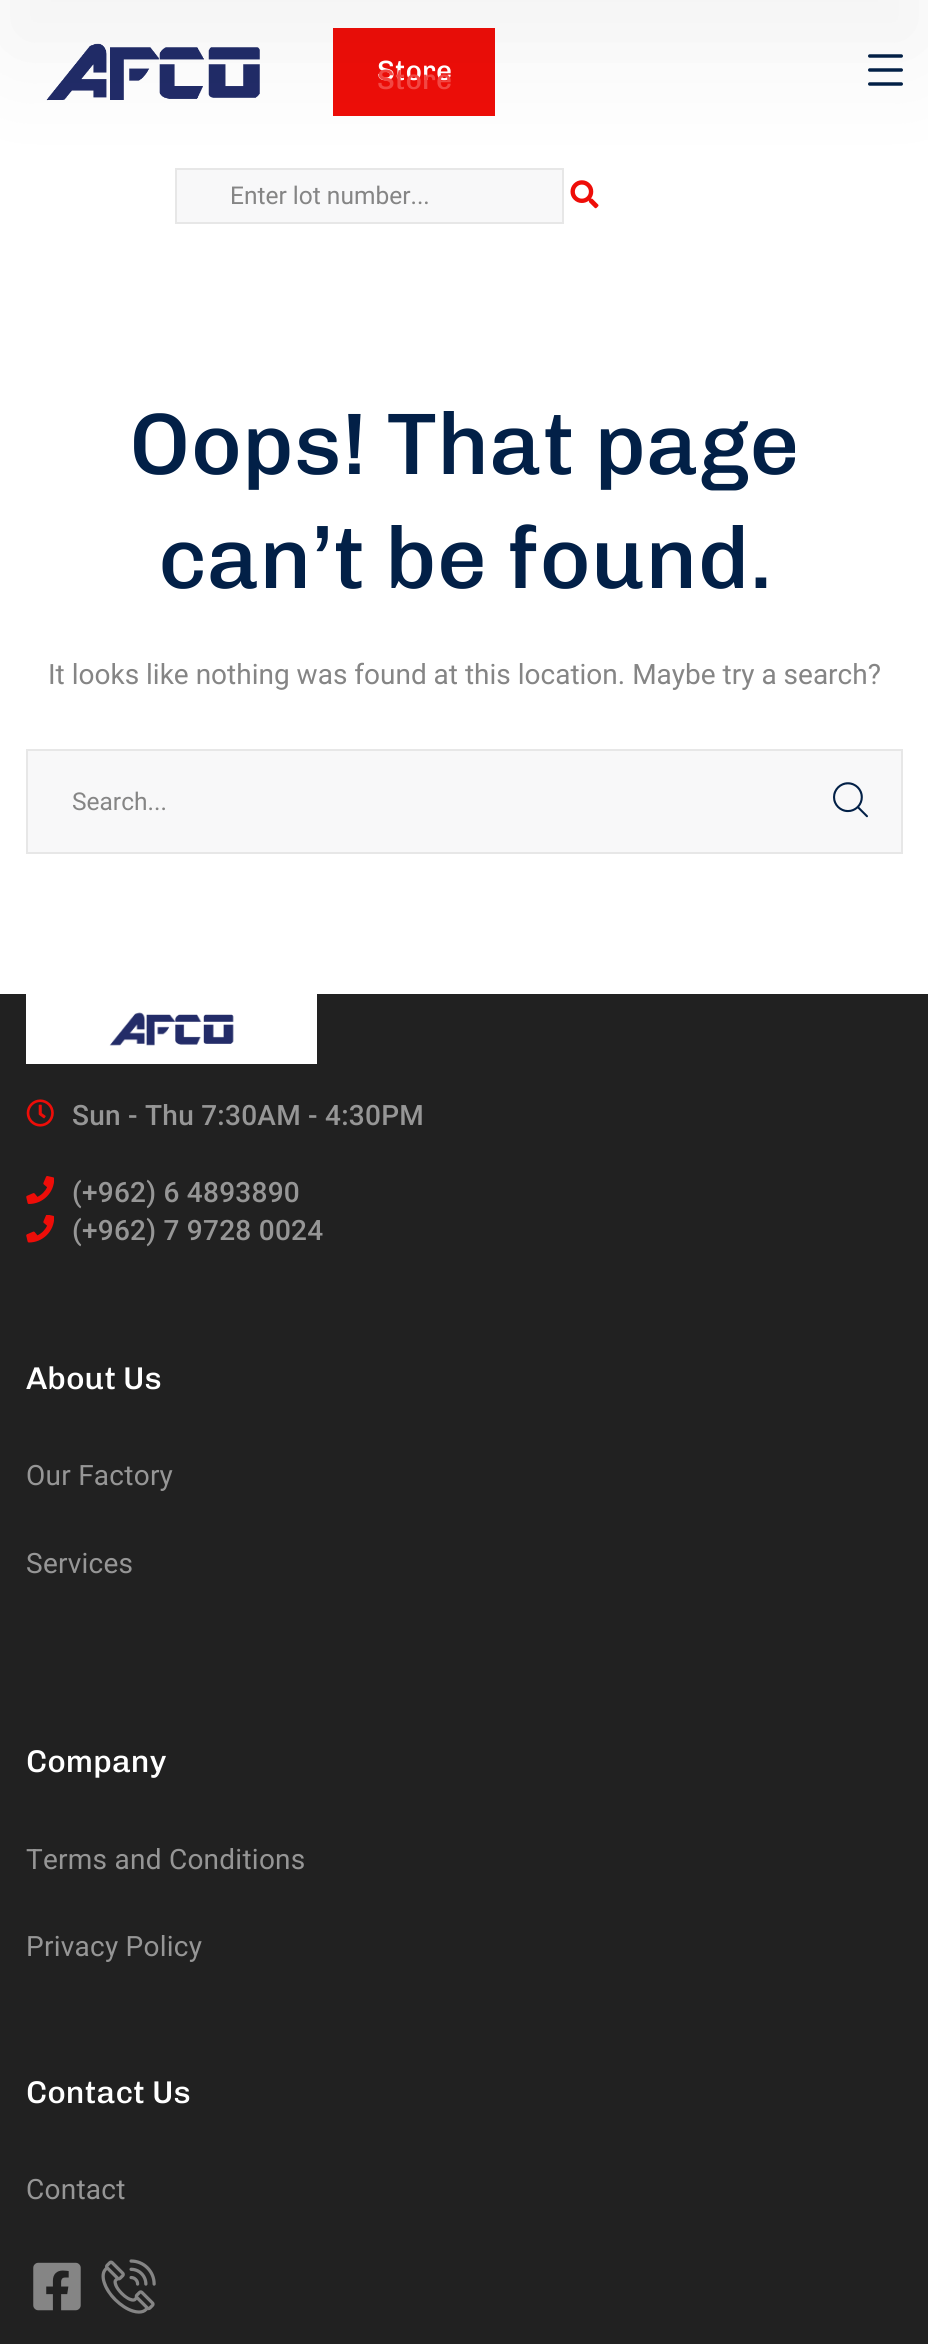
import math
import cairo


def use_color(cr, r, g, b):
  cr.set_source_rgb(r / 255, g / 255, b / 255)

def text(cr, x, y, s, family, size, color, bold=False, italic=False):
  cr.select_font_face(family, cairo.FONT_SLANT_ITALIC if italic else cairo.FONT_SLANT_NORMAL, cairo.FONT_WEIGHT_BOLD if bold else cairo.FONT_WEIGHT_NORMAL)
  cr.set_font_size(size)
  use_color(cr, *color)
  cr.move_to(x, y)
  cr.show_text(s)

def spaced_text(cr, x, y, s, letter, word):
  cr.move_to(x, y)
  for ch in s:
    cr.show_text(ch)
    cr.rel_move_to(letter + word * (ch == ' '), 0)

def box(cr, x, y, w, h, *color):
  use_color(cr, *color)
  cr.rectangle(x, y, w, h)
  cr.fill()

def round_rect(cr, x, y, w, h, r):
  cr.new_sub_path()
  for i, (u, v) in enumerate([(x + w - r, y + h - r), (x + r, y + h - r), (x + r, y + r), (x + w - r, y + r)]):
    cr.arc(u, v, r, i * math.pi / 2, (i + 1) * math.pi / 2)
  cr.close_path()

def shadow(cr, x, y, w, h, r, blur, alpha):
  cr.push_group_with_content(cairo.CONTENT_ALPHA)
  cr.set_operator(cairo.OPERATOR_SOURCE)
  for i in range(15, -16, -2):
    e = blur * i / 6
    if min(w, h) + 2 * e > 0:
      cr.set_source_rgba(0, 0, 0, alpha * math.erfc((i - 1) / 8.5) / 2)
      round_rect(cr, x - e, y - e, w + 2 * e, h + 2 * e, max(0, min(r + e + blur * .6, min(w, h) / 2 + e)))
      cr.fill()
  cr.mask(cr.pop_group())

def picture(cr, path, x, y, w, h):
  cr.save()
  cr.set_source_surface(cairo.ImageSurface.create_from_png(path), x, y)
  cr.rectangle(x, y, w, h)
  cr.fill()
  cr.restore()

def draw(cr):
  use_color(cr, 255, 255, 255)
  cr.paint()
  picture(cr, "img_01.png", 46, 43, 214, 58)
  box(cr, 333, 28, 162, 88, 238, 13, 8)
  picture(cr, "img_02.png", 868, 54, 35, 32)
  use_color(cr, 248, 248, 249)
  cr.rectangle(176, 169, 387, 54)
  cr.fill_preserve()
  use_color(cr, 231, 231, 231)
  cr.stroke()
  picture(cr, "img_03.png", 570, 180, 29, 29)
  use_color(cr, 0, 0, 0)
  shadow(cr, 0, -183, 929, 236, 0, 61, 0.05)
  use_color(cr, 248, 248, 249)
  cr.rectangle(27, 750, 875, 103)
  cr.fill_preserve()
  use_color(cr, 231, 231, 231)
  cr.stroke()
  picture(cr, "img_04.png", 833, 782, 35, 36)
  box(cr, 0, 994, 928, 1350, 33, 33, 33)
  box(cr, 26, 994, 291, 70, 255, 255, 255)
  picture(cr, "img_05.png", 109, 1012, 125, 34)
  picture(cr, "img_06.png", 26, 1099, 28, 28)
  picture(cr, "img_07.png", 26, 1176, 28, 28)
  picture(cr, "img_08.png", 26, 1215, 28, 28)
  picture(cr, "img_09.png", 33, 2262, 48, 49)
  picture(cr, "img_10.png", 101, 2259, 55, 55)
  text(cr, 377, 80, "Store", "Chivo Medium", 28, (255, 255, 255))
  text(cr, 377, 89, "Store", "Chivo Medium", 28, (242, 71, 67))
  text(cr, 230, 204, "Enter lot number...", "Roboto", 24.5, (133, 133, 133))
  text(cr, 129, 474, "Oops! That page", "Chivo Medium", 87.5, (2, 32, 71))
  text(cr, 158, 588, "can’t be found.", "Chivo Medium", 87.5, (2, 32, 71))
  text(cr, 48, 684, "It looks like nothing was found at this location. Maybe try a search?", "Roboto", 28, (133, 133, 133))
  text(cr, 72, 810, "Search...", "Roboto", 24.5, (133, 133, 133))
  cr.select_font_face("Roboto Medium")
  cr.set_font_size(28)
  use_color(cr, 150, 150, 150)
  spaced_text(cr, 72, 1125, "Sun - Thu 7:30AM - 4:30PM", 0.25, 0)
  spaced_text(cr, 72, 1202, "(+962) 6 4893890", 0.25, 0)
  spaced_text(cr, 72, 1240, "(+962) 7 9728 0024", 0.25, 0)
  text(cr, 26, 1389, "About Us", "Chivo Medium", 31.5, (255, 255, 255))
  cr.select_font_face("Roboto")
  cr.set_font_size(28)
  use_color(cr, 150, 150, 150)
  spaced_text(cr, 26, 1485, "Our Factory", 0.25, 0)
  spaced_text(cr, 26, 1573, "Services", 0.25, 0)
  text(cr, 26, 1772, "Company", "Chivo Medium", 31.5, (255, 255, 255))
  cr.select_font_face("Roboto")
  cr.set_font_size(28)
  use_color(cr, 150, 150, 150)
  spaced_text(cr, 26, 1869, "Terms and Conditions", 0.25, 0)
  spaced_text(cr, 26, 1956, "Privacy Policy", 0.25, 0)
  text(cr, 26, 2103, "Contact Us", "Chivo Medium", 31.5, (255, 255, 255))
  cr.select_font_face("Roboto")
  cr.set_font_size(28)
  use_color(cr, 150, 150, 150)
  spaced_text(cr, 26, 2199, "Contact", 0.25, 0)


surface = cairo.ImageSurface(cairo.FORMAT_RGB24, 928, 2344)
cr = cairo.Context(surface)
options = cairo.FontOptions()
options.set_hint_metrics(cairo.HINT_METRICS_OFF)
options.set_hint_style(cairo.HINT_STYLE_NONE)
cr.set_font_options(options)
cr.set_miter_limit(4)
draw(cr)
surface.write_to_png("out.png")
